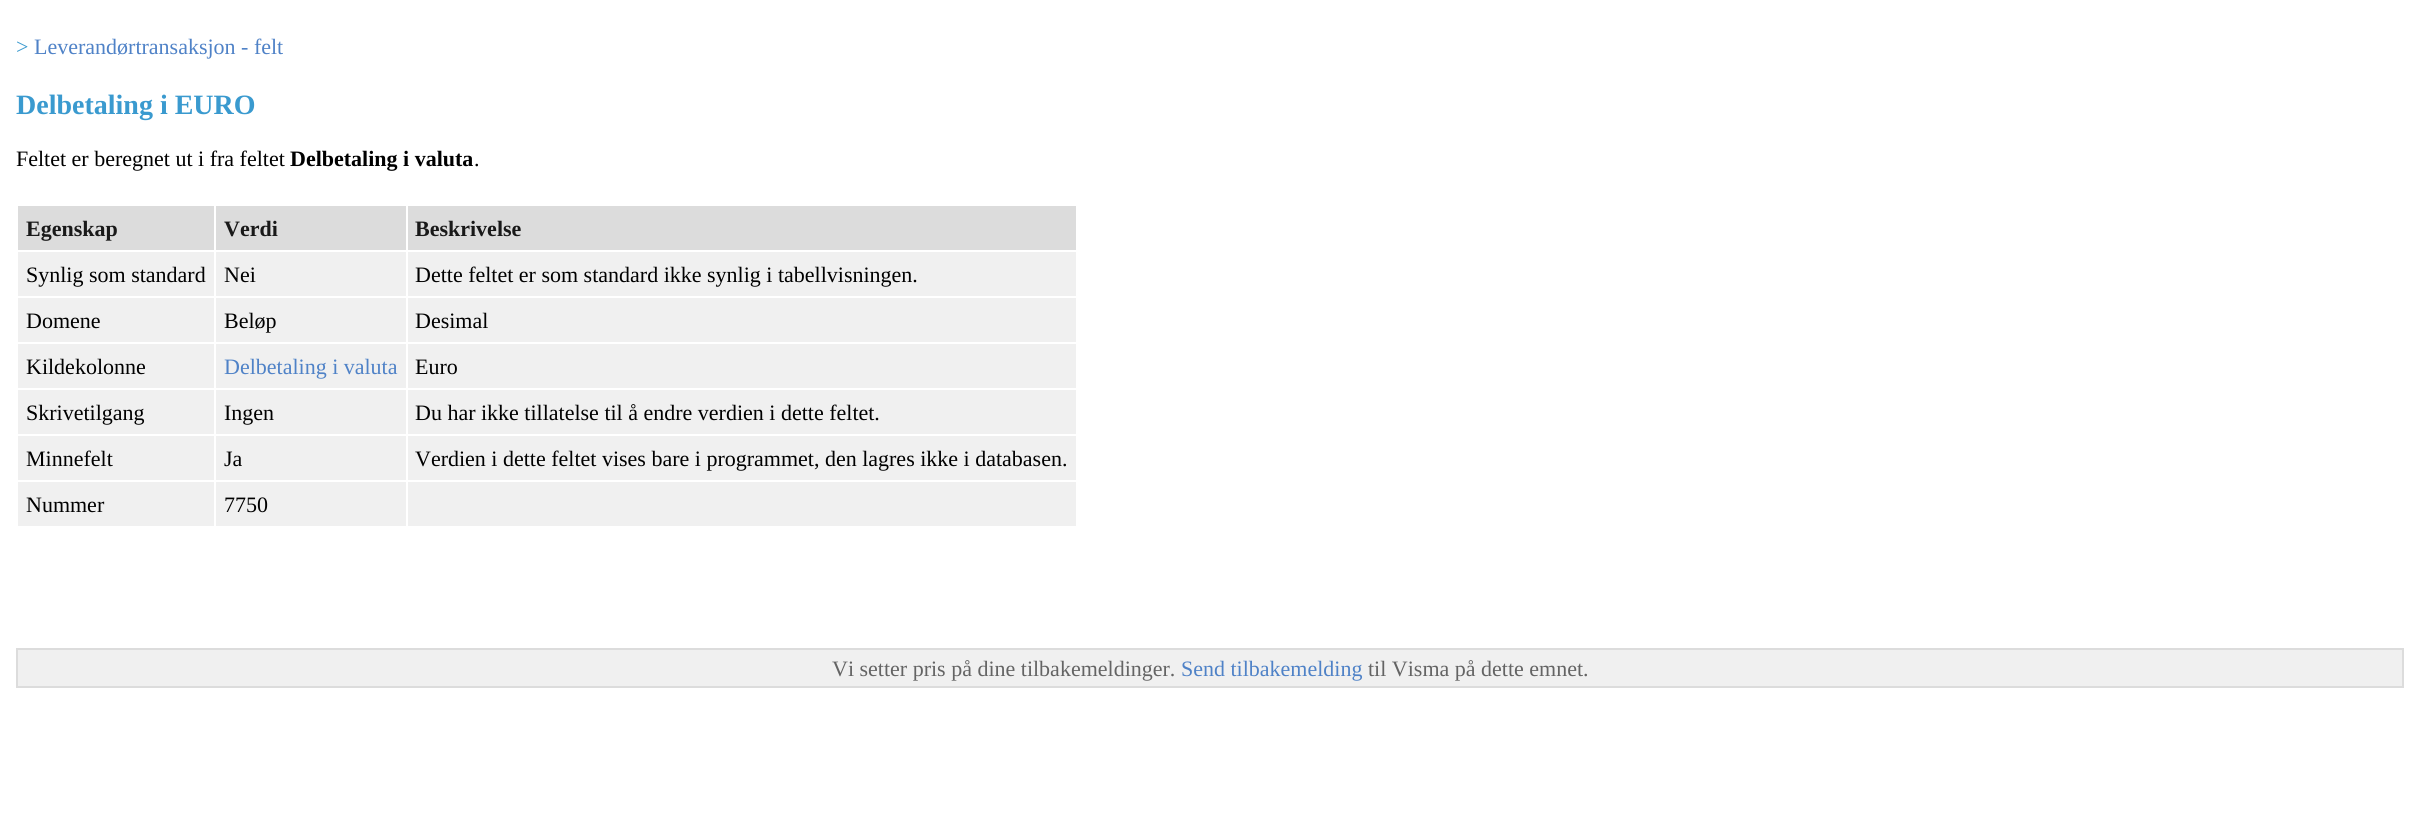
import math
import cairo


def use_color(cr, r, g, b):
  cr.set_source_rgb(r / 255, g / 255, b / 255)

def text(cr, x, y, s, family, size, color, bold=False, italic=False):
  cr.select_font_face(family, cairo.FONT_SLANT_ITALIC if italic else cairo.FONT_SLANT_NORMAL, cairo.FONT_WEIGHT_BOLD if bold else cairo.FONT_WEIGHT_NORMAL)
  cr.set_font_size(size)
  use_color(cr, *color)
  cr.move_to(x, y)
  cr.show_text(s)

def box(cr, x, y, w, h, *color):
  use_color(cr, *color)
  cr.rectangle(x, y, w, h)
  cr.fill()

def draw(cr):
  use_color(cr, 255, 255, 255)
  cr.paint()
  box(cr, 18, 252, 1058, 274, 240, 240, 240)
  box(cr, 18, 206, 196, 44, 220, 220, 220)
  box(cr, 216, 206, 190, 44, 220, 220, 220)
  box(cr, 408, 206, 668, 44, 220, 220, 220)
  box(cr, 406, 296, 672, 2, 255, 255, 255)
  box(cr, 406, 342, 672, 2, 255, 255, 255)
  box(cr, 406, 388, 672, 2, 255, 255, 255)
  box(cr, 406, 434, 672, 2, 255, 255, 255)
  box(cr, 406, 480, 672, 2, 255, 255, 255)
  box(cr, 406, 480, 2, 48, 255, 255, 255)
  box(cr, 214, 480, 194, 2, 255, 255, 255)
  box(cr, 406, 434, 2, 48, 255, 255, 255)
  box(cr, 214, 434, 194, 2, 255, 255, 255)
  box(cr, 406, 388, 2, 48, 255, 255, 255)
  box(cr, 214, 388, 194, 2, 255, 255, 255)
  box(cr, 406, 342, 2, 48, 255, 255, 255)
  box(cr, 214, 342, 194, 2, 255, 255, 255)
  box(cr, 406, 296, 2, 48, 255, 255, 255)
  box(cr, 214, 296, 194, 2, 255, 255, 255)
  box(cr, 214, 480, 2, 48, 255, 255, 255)
  box(cr, 16, 480, 200, 2, 255, 255, 255)
  box(cr, 214, 434, 2, 48, 255, 255, 255)
  box(cr, 16, 434, 200, 2, 255, 255, 255)
  box(cr, 214, 388, 2, 48, 255, 255, 255)
  box(cr, 16, 388, 200, 2, 255, 255, 255)
  box(cr, 214, 342, 2, 48, 255, 255, 255)
  box(cr, 16, 342, 200, 2, 255, 255, 255)
  box(cr, 214, 296, 2, 48, 255, 255, 255)
  box(cr, 16, 296, 200, 2, 255, 255, 255)
  box(cr, 214, 250, 2, 48, 255, 255, 255)
  box(cr, 406, 250, 2, 48, 255, 255, 255)
  use_color(cr, 240, 240, 240)
  cr.rectangle(17, 649, 2386, 38)
  cr.fill_preserve()
  use_color(cr, 220, 220, 220)
  cr.stroke()
  text(cr, 16, 54, ">", "Liberation Serif", 22, (58, 154, 207))
  text(cr, 34, 54, "Leverandørtransaksjon - felt", "Liberation Serif", 22, (79, 130, 199))
  text(cr, 16, 114, "Delbetaling i EURO", "Liberation Serif", 28, (58, 154, 207), bold=True)
  text(cr, 16, 166, "Feltet er beregnet ut i fra feltet", "Liberation Serif", 22, (0, 0, 0))
  text(cr, 290, 166, "Delbetaling i valuta", "Liberation Serif", 22, (0, 0, 0), bold=True)
  text(cr, 474, 166, ".", "Liberation Serif", 22, (0, 0, 0))
  text(cr, 26, 236, "Egenskap", "Liberation Serif", 22, (25, 25, 25), bold=True)
  text(cr, 224, 236, "Verdi", "Liberation Serif", 22, (25, 25, 25), bold=True)
  text(cr, 415, 236, "Beskrivelse", "Liberation Serif", 22, (25, 25, 25), bold=True)
  text(cr, 26, 282, "Synlig som standard", "Liberation Serif", 22, (0, 0, 0))
  text(cr, 224, 282, "Nei", "Liberation Serif", 22, (0, 0, 0))
  text(cr, 415, 282, "Dette feltet er som standard ikke synlig i tabellvisningen.", "Liberation Serif", 22, (0, 0, 0))
  text(cr, 26, 328, "Domene", "Liberation Serif", 22, (0, 0, 0))
  text(cr, 224, 328, "Beløp", "Liberation Serif", 22, (0, 0, 0))
  text(cr, 415, 328, "Desimal", "Liberation Serif", 22, (0, 0, 0))
  text(cr, 26, 374, "Kildekolonne", "Liberation Serif", 22, (0, 0, 0))
  text(cr, 224, 374, "Delbetaling i valuta", "Liberation Serif", 22, (79, 130, 199))
  text(cr, 415, 374, "Euro", "Liberation Serif", 22, (0, 0, 0))
  text(cr, 26, 420, "Skrivetilgang", "Liberation Serif", 22, (0, 0, 0))
  text(cr, 224, 420, "Ingen", "Liberation Serif", 22, (0, 0, 0))
  text(cr, 415, 420, "Du har ikke tillatelse til å endre verdien i dette feltet.", "Liberation Serif", 22, (0, 0, 0))
  text(cr, 26, 466, "Minnefelt", "Liberation Serif", 22, (0, 0, 0))
  text(cr, 224, 466, "Ja", "Liberation Serif", 22, (0, 0, 0))
  text(cr, 415, 466, "Verdien i dette feltet vises bare i programmet, den lagres ikke i databasen.", "Liberation Serif", 22, (0, 0, 0))
  text(cr, 26, 512, "Nummer", "Liberation Serif", 22, (0, 0, 0))
  text(cr, 224, 512, "7750", "Liberation Serif", 22, (0, 0, 0))
  text(cr, 832, 676, "Vi setter pris på dine tilbakemeldinger.", "Liberation Serif", 22, (100, 100, 100))
  text(cr, 1181, 676, "Send tilbakemelding", "Liberation Serif", 22, (79, 130, 199))
  text(cr, 1368, 676, "til Visma på dette emnet.", "Liberation Serif", 22, (100, 100, 100))


surface = cairo.ImageSurface(cairo.FORMAT_RGB24, 2420, 817)
cr = cairo.Context(surface)
options = cairo.FontOptions()
options.set_hint_metrics(cairo.HINT_METRICS_OFF)
options.set_hint_style(cairo.HINT_STYLE_NONE)
cr.set_font_options(options)
cr.set_miter_limit(4)
draw(cr)
surface.write_to_png("out.png")
